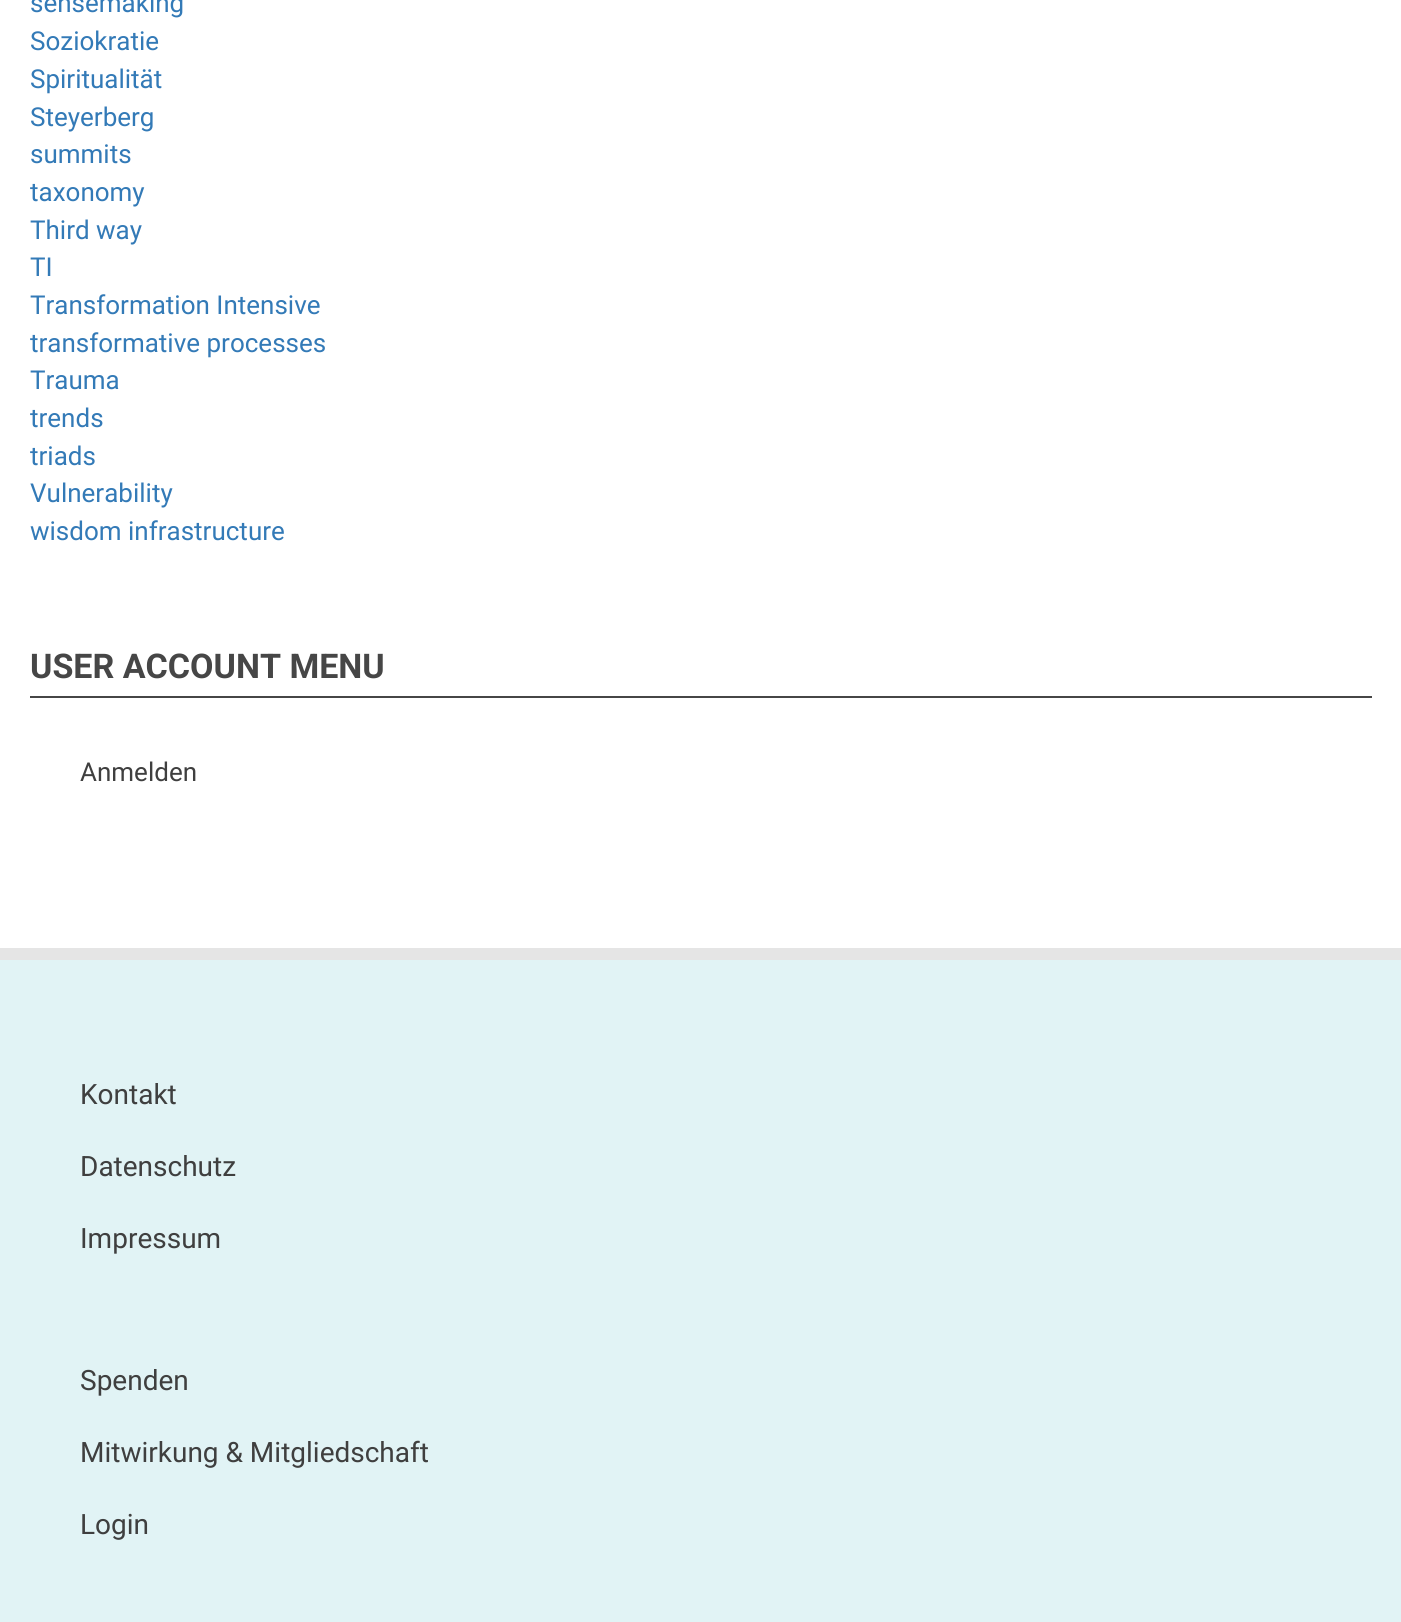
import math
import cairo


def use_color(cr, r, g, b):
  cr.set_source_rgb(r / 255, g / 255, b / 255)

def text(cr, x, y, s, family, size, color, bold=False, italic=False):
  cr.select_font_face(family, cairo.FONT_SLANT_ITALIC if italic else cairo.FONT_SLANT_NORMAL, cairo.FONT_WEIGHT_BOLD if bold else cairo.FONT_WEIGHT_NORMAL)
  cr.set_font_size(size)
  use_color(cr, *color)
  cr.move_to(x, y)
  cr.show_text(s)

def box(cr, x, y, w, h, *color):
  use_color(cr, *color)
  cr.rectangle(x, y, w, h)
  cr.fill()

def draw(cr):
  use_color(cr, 225, 243, 245)
  cr.paint()
  box(cr, 0, 0, 1401, 948, 255, 255, 255)
  box(cr, 0, 948, 1401, 12, 229, 229, 229)
  box(cr, 30, 696, 1342, 2, 70, 70, 70)
  text(cr, 30, 12, "sensemaking", "Roboto", 26, (51, 122, 183))
  text(cr, 30, 50, "Soziokratie", "Roboto", 26, (51, 122, 183))
  text(cr, 30, 88, "Spiritualität", "Roboto", 26, (51, 122, 183))
  text(cr, 30, 126, "Steyerberg", "Roboto", 26, (51, 122, 183))
  text(cr, 30, 163, "summits", "Roboto", 26, (51, 122, 183))
  text(cr, 30, 201, "taxonomy", "Roboto", 26, (51, 122, 183))
  text(cr, 30, 239, "Third way", "Roboto", 26, (51, 122, 183))
  text(cr, 30, 276, "TI", "Roboto", 26, (51, 122, 183))
  text(cr, 30, 314, "Transformation Intensive", "Roboto", 26, (51, 122, 183))
  text(cr, 30, 352, "transformative processes", "Roboto", 26, (51, 122, 183))
  text(cr, 30, 389, "Trauma", "Roboto", 26, (51, 122, 183))
  text(cr, 30, 427, "trends", "Roboto", 26, (51, 122, 183))
  text(cr, 30, 465, "triads", "Roboto", 26, (51, 122, 183))
  text(cr, 30, 502, "Vulnerability", "Roboto", 26, (51, 122, 183))
  text(cr, 30, 540, "wisdom infrastructure", "Roboto", 26, (51, 122, 183))
  text(cr, 30, 678, "USER ACCOUNT MENU", "Roboto", 34, (70, 70, 70), bold=True)
  text(cr, 80, 781, "Anmelden", "Roboto", 26, (63, 63, 63))
  text(cr, 80, 1104, "Kontakt", "Roboto", 28, (63, 63, 63))
  text(cr, 80, 1176, "Datenschutz", "Roboto", 28, (63, 63, 63))
  text(cr, 80, 1248, "Impressum", "Roboto", 28, (63, 63, 63))
  text(cr, 80, 1390, "Spenden", "Roboto", 28, (63, 63, 63))
  text(cr, 80, 1462, "Mitwirkung & Mitgliedschaft", "Roboto", 28, (63, 63, 63))
  text(cr, 80, 1534, "Login", "Roboto", 28, (63, 63, 63))


surface = cairo.ImageSurface(cairo.FORMAT_RGB24, 1401, 1622)
cr = cairo.Context(surface)
options = cairo.FontOptions()
options.set_hint_metrics(cairo.HINT_METRICS_OFF)
options.set_hint_style(cairo.HINT_STYLE_NONE)
cr.set_font_options(options)
cr.set_miter_limit(4)
draw(cr)
surface.write_to_png("out.png")
